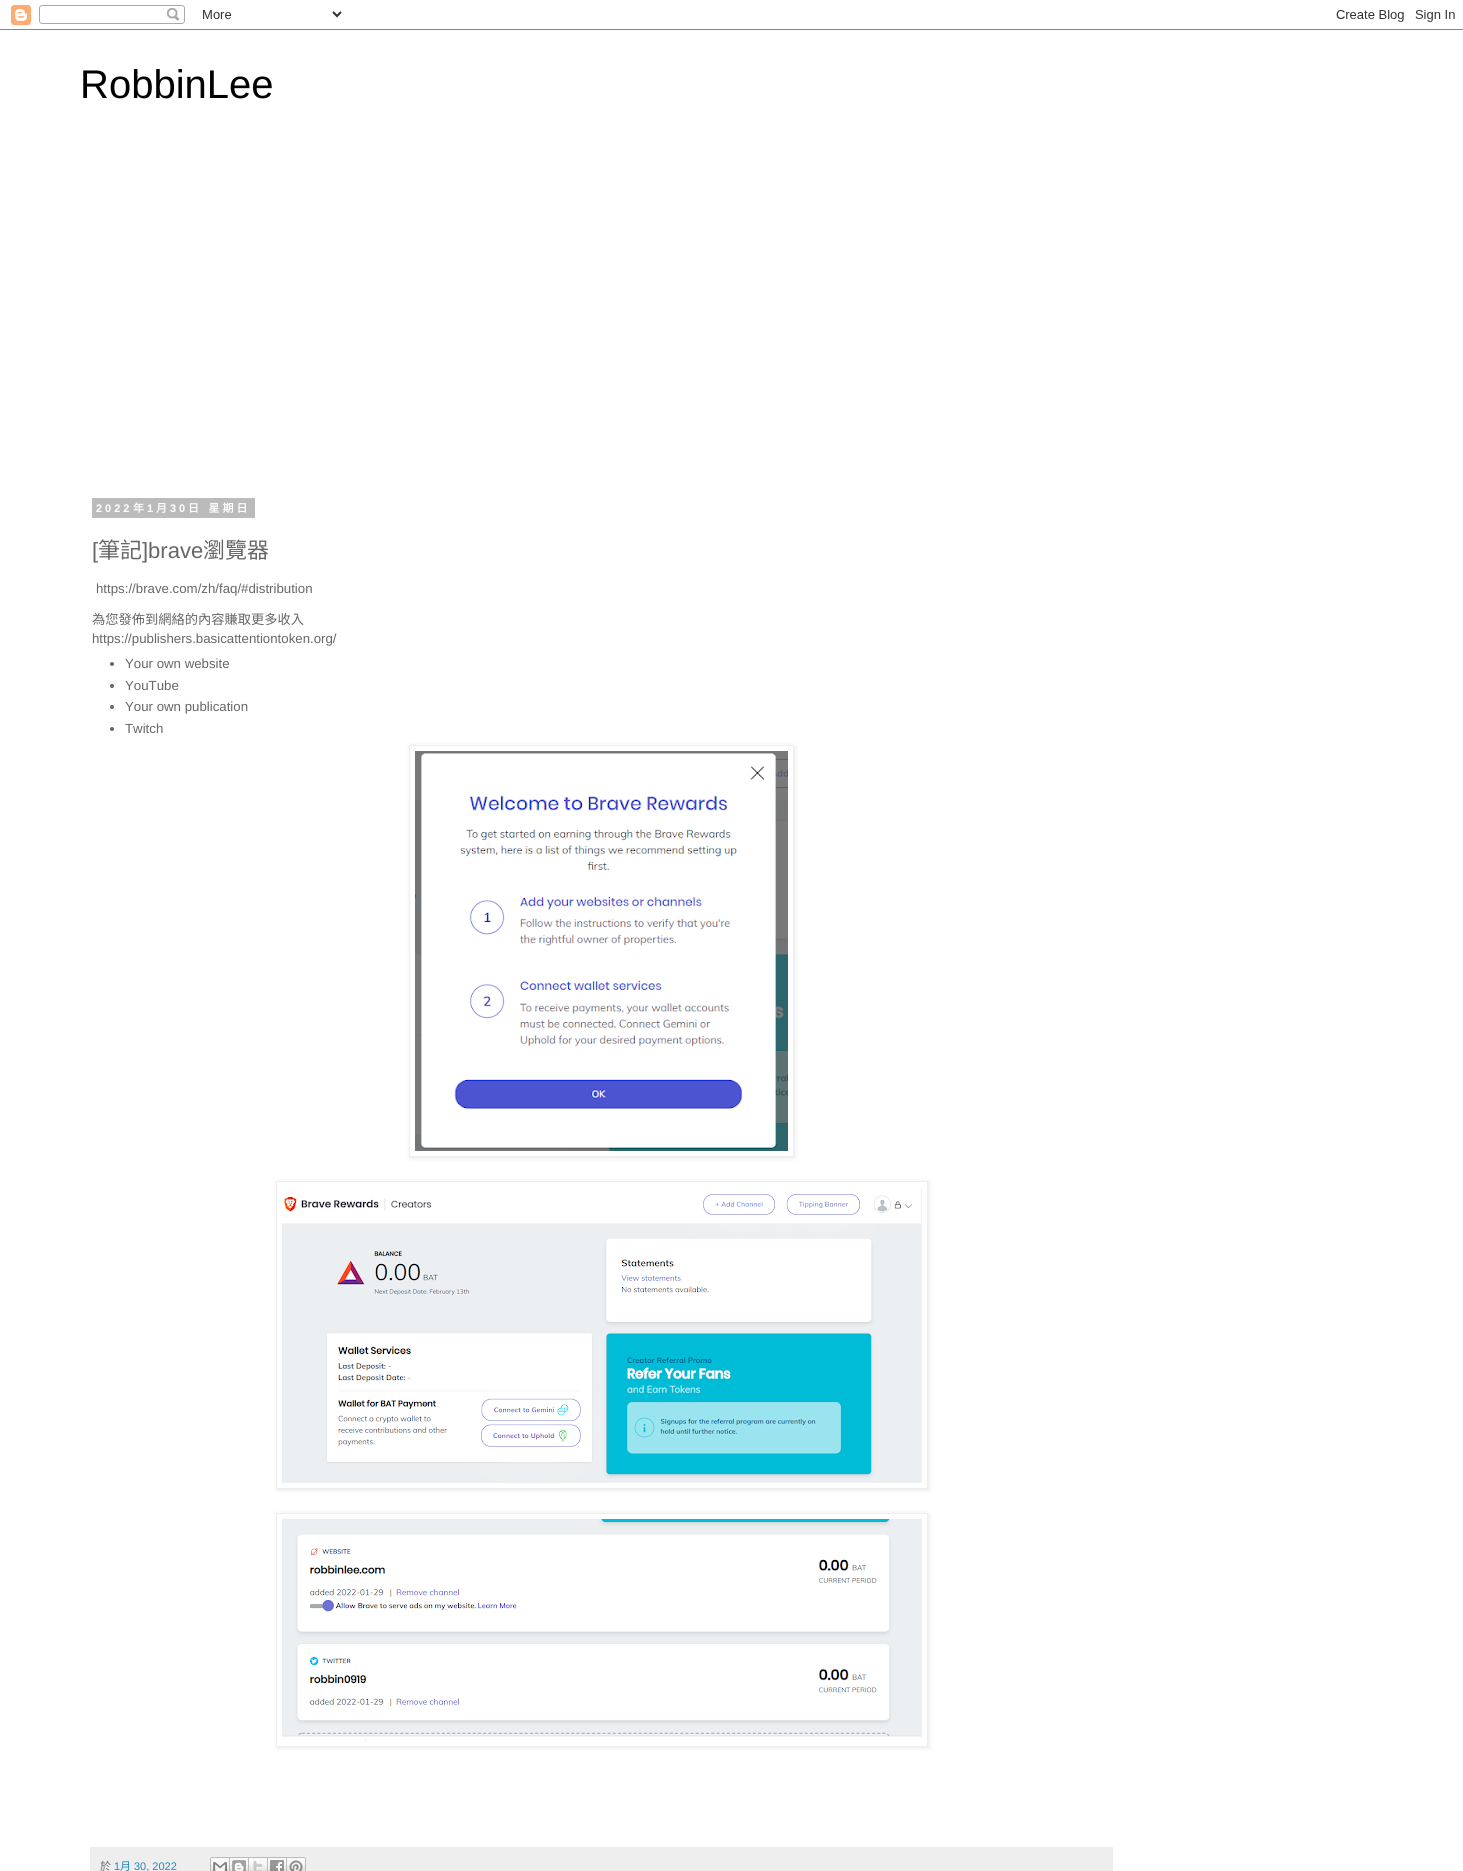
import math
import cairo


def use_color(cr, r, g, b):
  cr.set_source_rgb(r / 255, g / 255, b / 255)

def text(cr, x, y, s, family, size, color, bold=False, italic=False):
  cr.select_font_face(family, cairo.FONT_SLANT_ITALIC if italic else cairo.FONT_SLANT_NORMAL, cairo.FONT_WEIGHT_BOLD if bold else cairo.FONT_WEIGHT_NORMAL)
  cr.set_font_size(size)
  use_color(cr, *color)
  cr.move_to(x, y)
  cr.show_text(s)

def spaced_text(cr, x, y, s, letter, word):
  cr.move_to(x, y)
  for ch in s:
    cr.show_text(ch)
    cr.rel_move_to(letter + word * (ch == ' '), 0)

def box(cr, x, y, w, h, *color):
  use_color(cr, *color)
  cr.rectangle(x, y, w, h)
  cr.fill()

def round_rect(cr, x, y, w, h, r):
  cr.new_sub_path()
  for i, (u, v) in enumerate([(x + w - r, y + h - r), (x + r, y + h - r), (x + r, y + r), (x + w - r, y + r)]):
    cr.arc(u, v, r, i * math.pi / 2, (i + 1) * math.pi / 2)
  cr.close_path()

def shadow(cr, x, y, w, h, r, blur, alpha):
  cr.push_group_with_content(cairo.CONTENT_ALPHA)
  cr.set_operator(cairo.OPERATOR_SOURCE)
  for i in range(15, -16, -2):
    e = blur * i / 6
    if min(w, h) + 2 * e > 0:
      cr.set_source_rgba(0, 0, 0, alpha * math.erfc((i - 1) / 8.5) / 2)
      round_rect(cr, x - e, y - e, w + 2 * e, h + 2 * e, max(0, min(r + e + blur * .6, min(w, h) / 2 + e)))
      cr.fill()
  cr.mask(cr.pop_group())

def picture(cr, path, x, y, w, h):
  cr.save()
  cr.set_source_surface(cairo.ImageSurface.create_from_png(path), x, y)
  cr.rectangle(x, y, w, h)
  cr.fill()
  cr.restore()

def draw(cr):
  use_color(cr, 255, 255, 255)
  cr.paint()
  picture(cr, "img_01.png", 0, 5, 1463, 25)
  box(cr, 92, 498, 163, 20, 187, 187, 187)
  use_color(cr, 102, 102, 102)
  cr.arc(112, 664, 2, 0, 2 * math.pi)
  cr.fill()
  cr.arc(112, 686, 2, 0, 2 * math.pi)
  cr.fill()
  cr.arc(112, 707, 2, 0, 2 * math.pi)
  cr.fill()
  cr.arc(112, 729, 2, 0, 2 * math.pi)
  cr.fill()
  cr.save()
  cr.set_fill_rule(cairo.FILL_RULE_EVEN_ODD)
  cr.new_path()
  cr.move_to(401, 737)
  cr.line_to(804, 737)
  cr.line_to(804, 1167)
  cr.line_to(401, 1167)
  cr.close_path()
  cr.move_to(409, 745)
  cr.line_to(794, 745)
  cr.line_to(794, 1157)
  cr.line_to(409, 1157)
  cr.close_path()
  cr.clip()
  use_color(cr, 0, 0, 0)
  shadow(cr, 410, 746, 385, 412, 0, 2.5, 0.1)
  cr.restore()
  cr.rectangle(409.5, 745.5, 384, 411)
  use_color(cr, 238, 238, 238)
  cr.set_line_width(1)
  cr.stroke()
  picture(cr, "img_02.png", 415, 751, 373, 400)
  cr.save()
  cr.set_fill_rule(cairo.FILL_RULE_EVEN_ODD)
  cr.new_path()
  cr.move_to(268, 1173)
  cr.line_to(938, 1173)
  cr.line_to(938, 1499)
  cr.line_to(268, 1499)
  cr.close_path()
  cr.move_to(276, 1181)
  cr.line_to(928, 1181)
  cr.line_to(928, 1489)
  cr.line_to(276, 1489)
  cr.close_path()
  cr.clip()
  use_color(cr, 0, 0, 0)
  shadow(cr, 277, 1182, 652, 308, 0, 2.5, 0.1)
  cr.restore()
  cr.rectangle(276.5, 1181.5, 651, 307)
  cr.stroke()
  picture(cr, "img_03.png", 282, 1187, 640, 296)
  cr.save()
  cr.set_fill_rule(cairo.FILL_RULE_EVEN_ODD)
  cr.new_path()
  cr.move_to(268, 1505)
  cr.line_to(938, 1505)
  cr.line_to(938, 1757)
  cr.line_to(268, 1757)
  cr.close_path()
  cr.move_to(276, 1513)
  cr.line_to(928, 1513)
  cr.line_to(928, 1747)
  cr.line_to(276, 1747)
  cr.close_path()
  cr.clip()
  use_color(cr, 0, 0, 0)
  shadow(cr, 277, 1514, 652, 234, 0, 2.5, 0.1)
  cr.restore()
  cr.rectangle(276.5, 1513.5, 651, 233)
  cr.stroke()
  picture(cr, "img_04.png", 282, 1519, 640, 222)
  box(cr, 90, 1847, 1023, 24, 238, 238, 238)
  picture(cr, "img_05.png", 210, 1857, 20, 14)
  picture(cr, "img_06.png", 230, 1857, 19, 14)
  picture(cr, "img_07.png", 249, 1857, 19, 14)
  picture(cr, "img_08.png", 268, 1857, 19, 14)
  picture(cr, "img_09.png", 287, 1857, 19, 14)
  text(cr, 80, 98, "RobbinLee", "Liberation Sans", 40, (0, 0, 0))
  cr.select_font_face("Liberation Sans", cairo.FONT_SLANT_NORMAL, cairo.FONT_WEIGHT_BOLD)
  cr.set_font_size(11)
  use_color(cr, 255, 255, 255)
  spaced_text(cr, 96, 512, "2022", 3, 0)
  cr.select_font_face("Noto Sans CJK TC", cairo.FONT_SLANT_NORMAL, cairo.FONT_WEIGHT_BOLD)
  spaced_text(cr, 133, 512, "年", 3, 0)
  cr.select_font_face("Liberation Sans", cairo.FONT_SLANT_NORMAL, cairo.FONT_WEIGHT_BOLD)
  spaced_text(cr, 147, 512, "1", 3, 0)
  cr.select_font_face("Noto Sans CJK TC", cairo.FONT_SLANT_NORMAL, cairo.FONT_WEIGHT_BOLD)
  spaced_text(cr, 156, 512, "月", 3, 0)
  cr.select_font_face("Liberation Sans", cairo.FONT_SLANT_NORMAL, cairo.FONT_WEIGHT_BOLD)
  spaced_text(cr, 170, 512, "30", 3, 0)
  cr.select_font_face("Noto Sans CJK TC", cairo.FONT_SLANT_NORMAL, cairo.FONT_WEIGHT_BOLD)
  spaced_text(cr, 188, 512, "日 星期日", 3, 1)
  text(cr, 92, 558, "[", "Liberation Sans", 22, (102, 102, 102))
  text(cr, 98, 558, "筆記", "Noto Sans CJK TC", 22, (102, 102, 102))
  text(cr, 142, 558, "]brave", "Liberation Sans", 22, (102, 102, 102))
  text(cr, 203, 558, "瀏覽器", "Noto Sans CJK TC", 22, (102, 102, 102))
  text(cr, 96, 593, "https://brave.com/zh/faq/#distribution", "Liberation Sans", 13.25, (102, 102, 102))
  text(cr, 92, 624, "為您發佈到網絡的內容賺取更多收入", "Noto Sans CJK TC", 13.25, (102, 102, 102))
  text(cr, 92, 643, "https://publishers.basicattentiontoken.org/", "Liberation Sans", 13.25, (102, 102, 102))
  text(cr, 125, 668, "Your own website", "Liberation Sans", 13.25, (102, 102, 102))
  text(cr, 125, 690, "YouTube", "Liberation Sans", 13.25, (102, 102, 102))
  text(cr, 125, 711, "Your own publication", "Liberation Sans", 13.25, (102, 102, 102))
  text(cr, 125, 733, "Twitch", "Liberation Sans", 13.25, (102, 102, 102))
  text(cr, 100, 1870, "於", "Noto Sans CJK TC", 11, (102, 102, 102))
  text(cr, 114, 1870, "1", "Liberation Sans", 11, (34, 136, 187))
  text(cr, 120, 1870, "月", "Noto Sans CJK TC", 11, (34, 136, 187))
  text(cr, 134, 1870, "30, 2022", "Liberation Sans", 11, (34, 136, 187))


surface = cairo.ImageSurface(cairo.FORMAT_RGB24, 1463, 1871)
cr = cairo.Context(surface)
options = cairo.FontOptions()
options.set_hint_metrics(cairo.HINT_METRICS_OFF)
options.set_hint_style(cairo.HINT_STYLE_NONE)
cr.set_font_options(options)
cr.set_miter_limit(4)
draw(cr)
surface.write_to_png("out.png")
